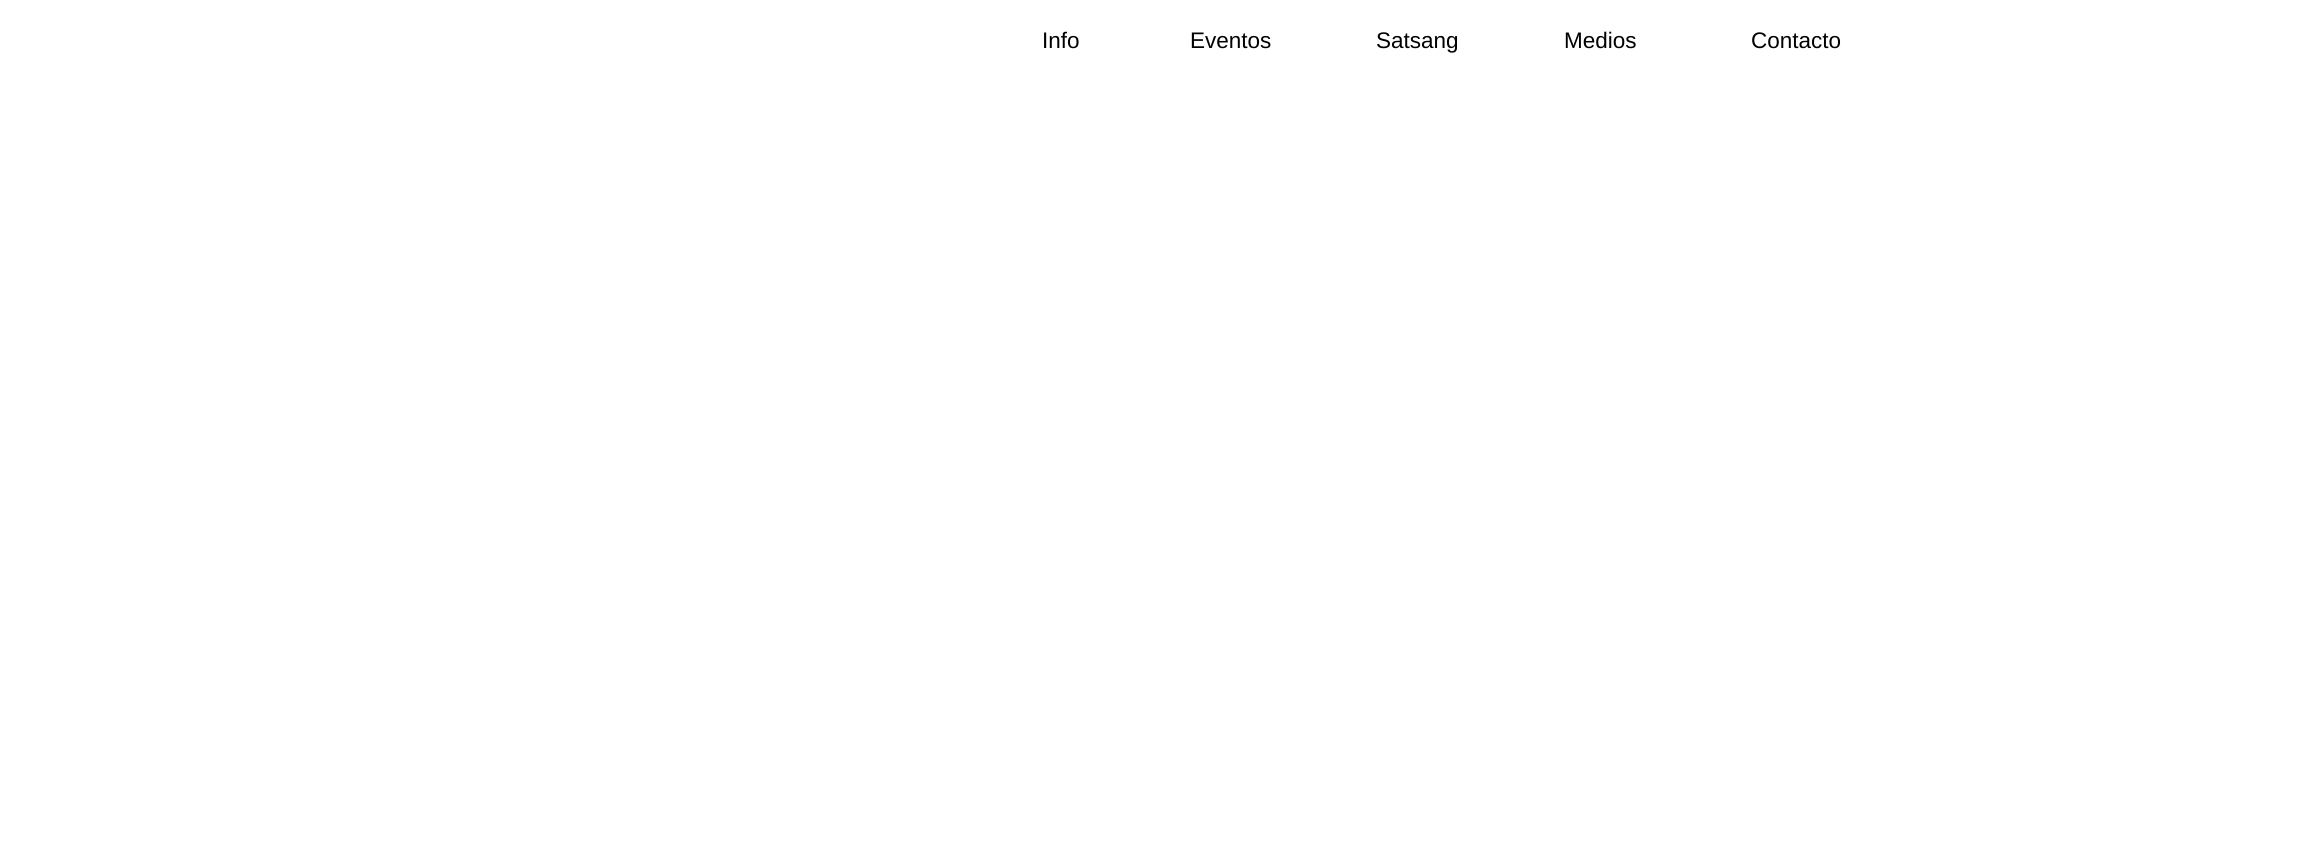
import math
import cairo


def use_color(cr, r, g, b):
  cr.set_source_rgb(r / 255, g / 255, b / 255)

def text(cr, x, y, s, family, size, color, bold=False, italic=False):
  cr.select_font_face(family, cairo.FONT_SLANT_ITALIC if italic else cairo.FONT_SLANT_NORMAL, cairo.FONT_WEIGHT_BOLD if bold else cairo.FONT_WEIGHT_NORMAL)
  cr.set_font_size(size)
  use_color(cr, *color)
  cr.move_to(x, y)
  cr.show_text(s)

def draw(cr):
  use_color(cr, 255, 255, 255)
  cr.paint()
  text(cr, 1042, 48, "Info", "Liberation Sans", 22.5, (0, 0, 0))
  text(cr, 1190, 48, "Eventos", "Liberation Sans", 22.5, (0, 0, 0))
  text(cr, 1376, 48, "Satsang", "Liberation Sans", 22.5, (0, 0, 0))
  text(cr, 1564, 48, "Medios", "Liberation Sans", 22.5, (0, 0, 0))
  text(cr, 1751, 48, "Contacto", "Liberation Sans", 22.5, (0, 0, 0))


surface = cairo.ImageSurface(cairo.FORMAT_RGB24, 2317, 848)
cr = cairo.Context(surface)
options = cairo.FontOptions()
options.set_hint_metrics(cairo.HINT_METRICS_OFF)
options.set_hint_style(cairo.HINT_STYLE_NONE)
cr.set_font_options(options)
cr.set_miter_limit(4)
draw(cr)
surface.write_to_png("out.png")
